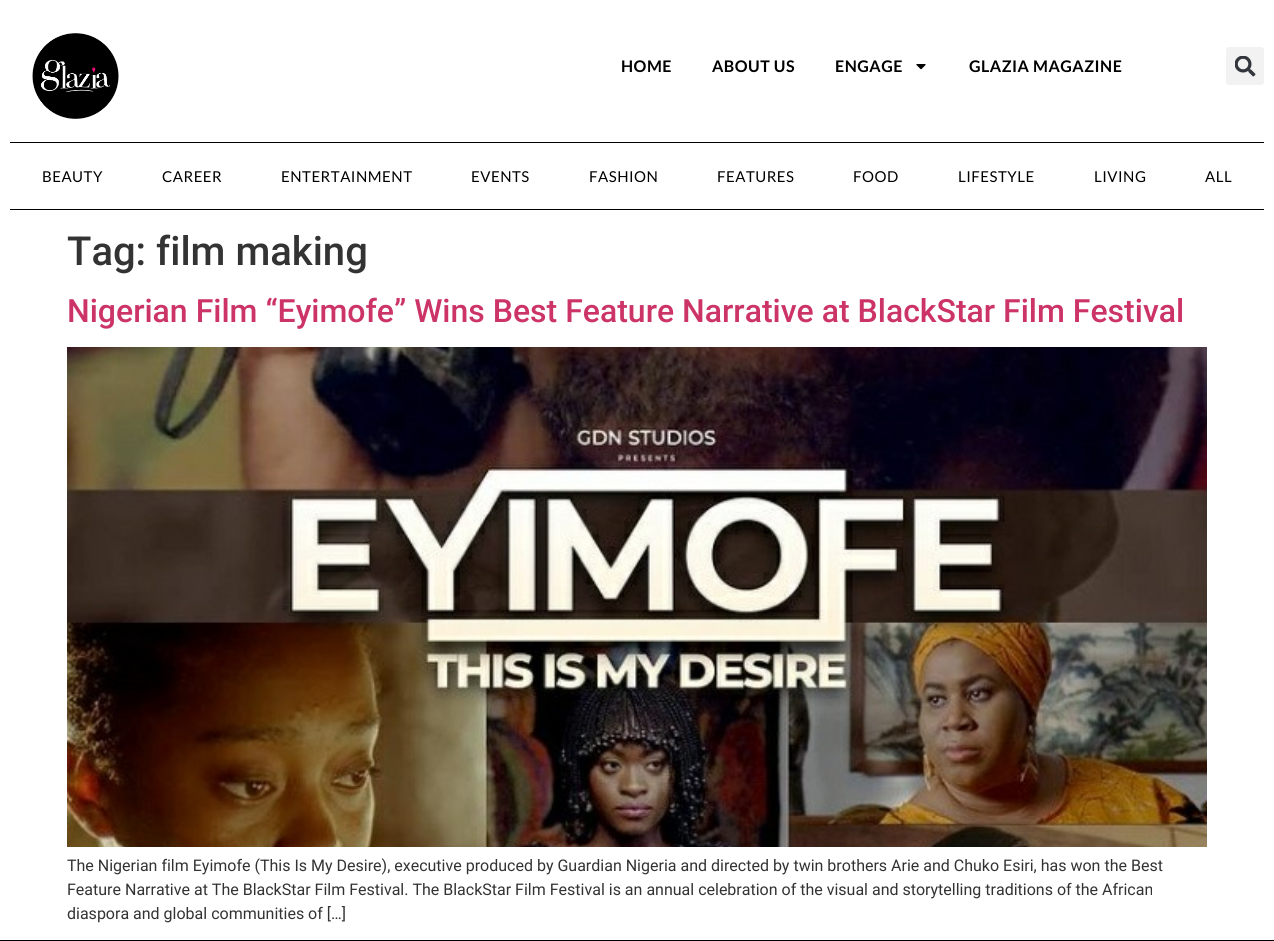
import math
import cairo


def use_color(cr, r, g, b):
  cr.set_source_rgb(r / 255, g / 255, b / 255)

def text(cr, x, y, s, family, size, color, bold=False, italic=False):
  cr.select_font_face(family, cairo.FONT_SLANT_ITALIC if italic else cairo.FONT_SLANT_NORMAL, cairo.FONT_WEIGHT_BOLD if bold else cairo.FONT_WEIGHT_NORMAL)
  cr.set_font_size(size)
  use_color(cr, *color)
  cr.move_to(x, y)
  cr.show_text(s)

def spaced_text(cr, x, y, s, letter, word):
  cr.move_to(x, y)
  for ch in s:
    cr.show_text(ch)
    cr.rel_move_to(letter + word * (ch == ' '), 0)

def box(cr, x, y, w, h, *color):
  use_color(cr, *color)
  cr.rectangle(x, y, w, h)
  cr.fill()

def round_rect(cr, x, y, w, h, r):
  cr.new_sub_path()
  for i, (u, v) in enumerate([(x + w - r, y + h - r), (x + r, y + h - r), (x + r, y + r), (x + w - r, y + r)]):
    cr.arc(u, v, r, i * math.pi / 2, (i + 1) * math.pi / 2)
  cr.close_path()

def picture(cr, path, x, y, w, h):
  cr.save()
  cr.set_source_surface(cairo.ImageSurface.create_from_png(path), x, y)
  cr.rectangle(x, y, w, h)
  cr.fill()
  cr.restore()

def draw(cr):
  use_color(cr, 255, 255, 255)
  cr.paint()
  picture(cr, "img_01.png", 32, 33, 87, 86)
  picture(cr, "img_02.png", 916, 64, 10, 6)
  use_color(cr, 242, 242, 242)
  round_rect(cr, 1226, 47, 38, 38, 3)
  cr.fill()
  picture(cr, "img_03.png", 1235, 56, 21, 21)
  box(cr, 10, 142, 1254, 1, 0, 0, 0)
  box(cr, 10, 209, 1254, 1, 0, 0, 0)
  picture(cr, "img_04.png", 67, 347, 1140, 500)
  box(cr, 0, 940, 1274, 1, 0, 0, 0)
  cr.select_font_face("Lato", cairo.FONT_SLANT_NORMAL, cairo.FONT_WEIGHT_BOLD)
  cr.set_font_size(16)
  spaced_text(cr, 621, 72, "HOME", 0.5, 0)
  spaced_text(cr, 712, 72, "ABOUT US", 0.5, 0)
  spaced_text(cr, 835, 72, "ENGAGE", 0.5, 0)
  spaced_text(cr, 969, 72, "GLAZIA MAGAZINE", 0.5, 0)
  cr.select_font_face("Lato")
  cr.set_font_size(15)
  spaced_text(cr, 42, 182, "BEAUTY", 0.5, 0)
  spaced_text(cr, 162, 182, "CAREER", 0.5, 0)
  spaced_text(cr, 281, 182, "ENTERTAINMENT", 0.5, 0)
  spaced_text(cr, 471, 182, "EVENTS", 0.5, 0)
  spaced_text(cr, 589, 182, "FASHION", 0.5, 0)
  spaced_text(cr, 717, 182, "FEATURES", 0.5, 0)
  spaced_text(cr, 853, 182, "FOOD", 0.5, 0)
  spaced_text(cr, 958, 182, "LIFESTYLE", 0.5, 0)
  spaced_text(cr, 1094, 182, "LIVING", 0.5, 0)
  spaced_text(cr, 1205, 182, "ALL", 0.5, 0)
  text(cr, 67, 265, "Tag: film making", "Roboto Medium", 40, (51, 51, 51))
  text(cr, 67, 322, "Nigerian Film “Eyimofe” Wins Best Feature Narrative at BlackStar Film Festival", "Roboto Medium", 32, (204, 51, 102))
  text(cr, 67, 871, "The Nigerian film Eyimofe (This Is My Desire), executive produced by Guardian Nigeria and directed by twin brothers Arie and Chuko Esiri, has won the Best", "Roboto", 16, (51, 51, 51))
  text(cr, 67, 895, "Feature Narrative at The BlackStar Film Festival. The BlackStar Film Festival is an annual celebration of the visual and storytelling traditions of the African", "Roboto", 16, (51, 51, 51))
  text(cr, 67, 919, "diaspora and global communities of […]", "Roboto", 16, (51, 51, 51))


surface = cairo.ImageSurface(cairo.FORMAT_RGB24, 1274, 941)
cr = cairo.Context(surface)
options = cairo.FontOptions()
options.set_hint_metrics(cairo.HINT_METRICS_OFF)
options.set_hint_style(cairo.HINT_STYLE_NONE)
cr.set_font_options(options)
cr.set_miter_limit(4)
draw(cr)
surface.write_to_png("out.png")
